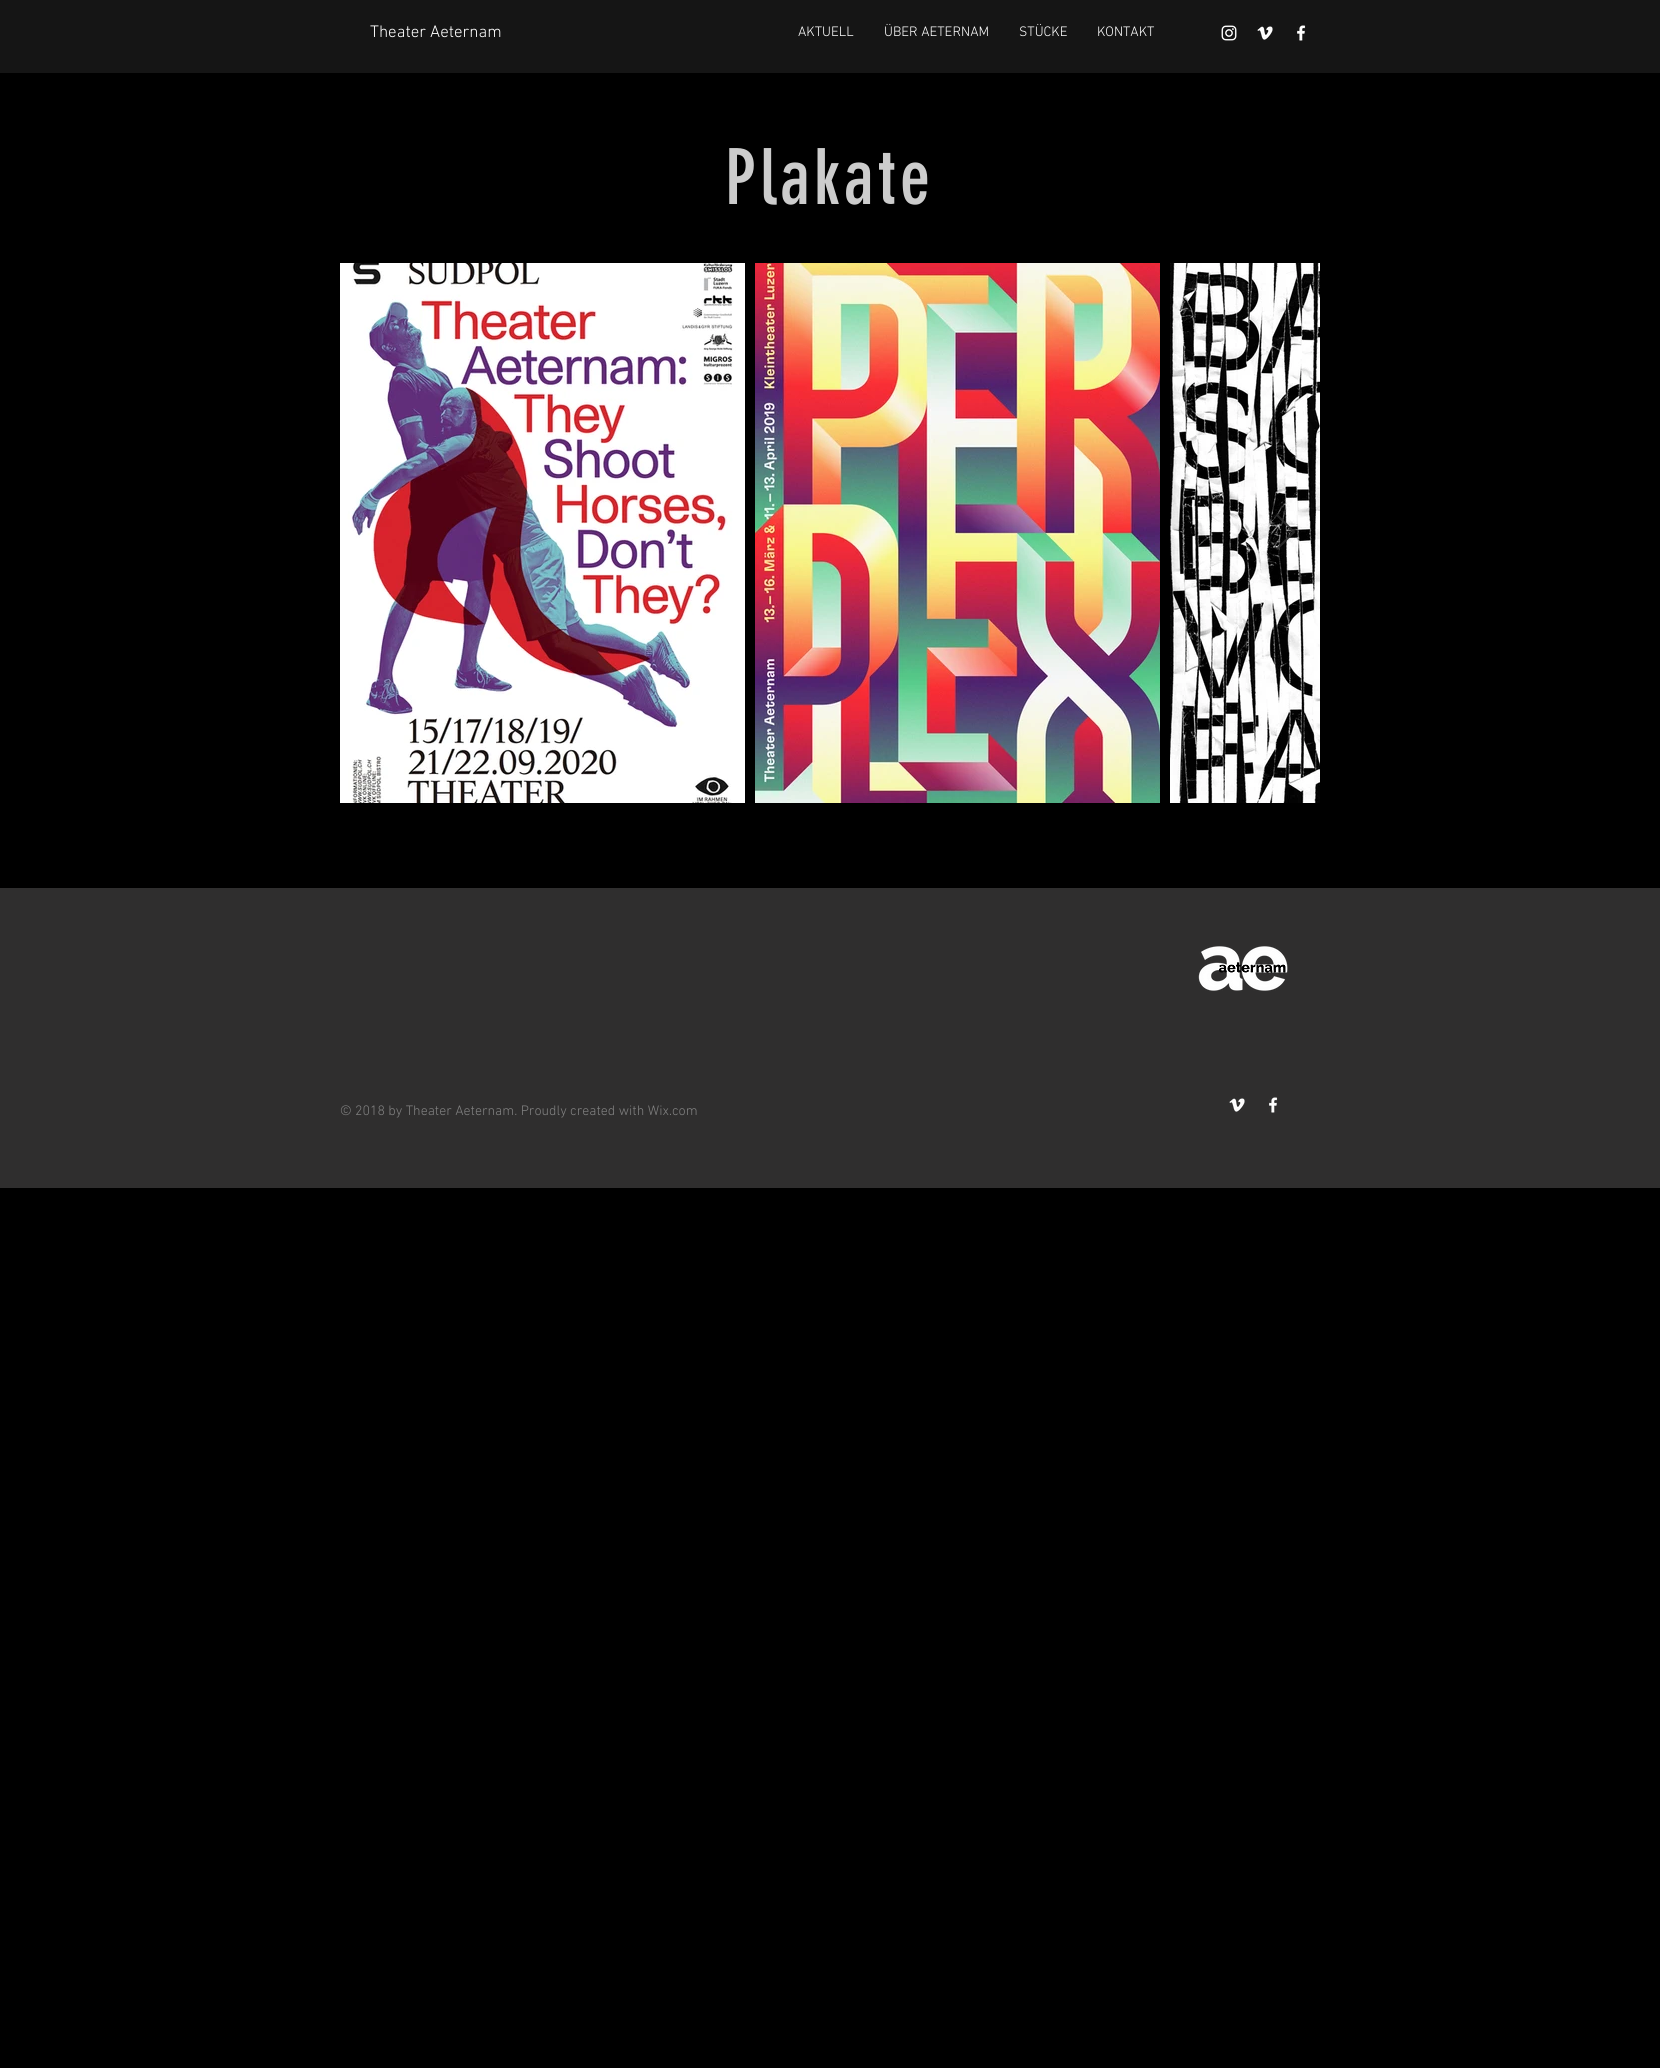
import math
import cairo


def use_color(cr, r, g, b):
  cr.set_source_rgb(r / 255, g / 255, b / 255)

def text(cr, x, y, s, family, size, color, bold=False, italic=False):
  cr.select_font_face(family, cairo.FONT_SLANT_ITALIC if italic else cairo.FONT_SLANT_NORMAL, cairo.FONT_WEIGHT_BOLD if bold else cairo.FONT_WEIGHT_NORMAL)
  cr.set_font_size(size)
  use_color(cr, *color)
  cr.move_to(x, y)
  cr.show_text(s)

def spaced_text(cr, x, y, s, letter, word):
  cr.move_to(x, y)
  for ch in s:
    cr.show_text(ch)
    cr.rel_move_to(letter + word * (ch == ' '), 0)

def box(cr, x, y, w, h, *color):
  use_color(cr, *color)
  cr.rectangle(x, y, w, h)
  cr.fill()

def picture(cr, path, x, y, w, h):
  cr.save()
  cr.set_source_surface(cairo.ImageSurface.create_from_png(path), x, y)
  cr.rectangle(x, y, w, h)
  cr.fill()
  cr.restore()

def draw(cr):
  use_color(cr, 0, 0, 0)
  cr.paint()
  box(cr, 0, 0, 1660, 73, 21, 21, 21)
  picture(cr, "img_01.png", 1221, 25, 16, 16)
  picture(cr, "img_02.png", 1257, 26, 16, 14)
  picture(cr, "img_03.png", 1297, 25, 9, 16)
  picture(cr, "img_04.png", 340, 263, 405, 540)
  picture(cr, "img_05.png", 755, 263, 405, 540)
  picture(cr, "img_06.png", 1170, 263, 150, 540)
  cr.set_source_rgba(0.176, 0.176, 0.176, 0.9)
  cr.new_path()
  cr.move_to(1276, 515.5)
  cr.line_to(1277.5, 514)
  cr.line_to(1295.5, 532)
  cr.line_to(1277.5, 550)
  cr.line_to(1276, 548.5)
  cr.line_to(1292.5, 532)
  cr.close_path()
  cr.fill()
  box(cr, 0, 888, 1660, 300, 47, 46, 46)
  picture(cr, "img_07.png", 1198, 946, 90, 45)
  picture(cr, "img_08.png", 1229, 1098, 16, 14)
  picture(cr, "img_09.png", 1269, 1097, 9, 16)
  text(cr, 370, 37, "Theater Aeternam", "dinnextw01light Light", 17, (255, 255, 255))
  text(cr, 798, 36, "AKTUELL", "dinnextw01light Light", 14, (255, 255, 255))
  text(cr, 884, 36, "ÜBER AETERNAM", "dinnextw01light Light", 14, (255, 255, 255))
  text(cr, 1019, 36, "STÜCKE", "dinnextw01light Light", 14, (255, 255, 255))
  text(cr, 1097, 36, "KONTAKT", "dinnextw01light Light", 14, (255, 255, 255))
  cr.select_font_face("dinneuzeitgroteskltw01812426")
  cr.set_font_size(76)
  use_color(cr, 204, 204, 204)
  spaced_text(cr, 725, 204, "Plakate", 3.75, 0)
  text(cr, 340, 1115, "© 2018 by Theater Aeternam. Proudly created with Wix.com", "dinnextw01light Light", 14, (129, 129, 129))


surface = cairo.ImageSurface(cairo.FORMAT_RGB24, 1660, 2068)
cr = cairo.Context(surface)
options = cairo.FontOptions()
options.set_hint_metrics(cairo.HINT_METRICS_OFF)
options.set_hint_style(cairo.HINT_STYLE_NONE)
cr.set_font_options(options)
cr.set_miter_limit(4)
draw(cr)
surface.write_to_png("out.png")
